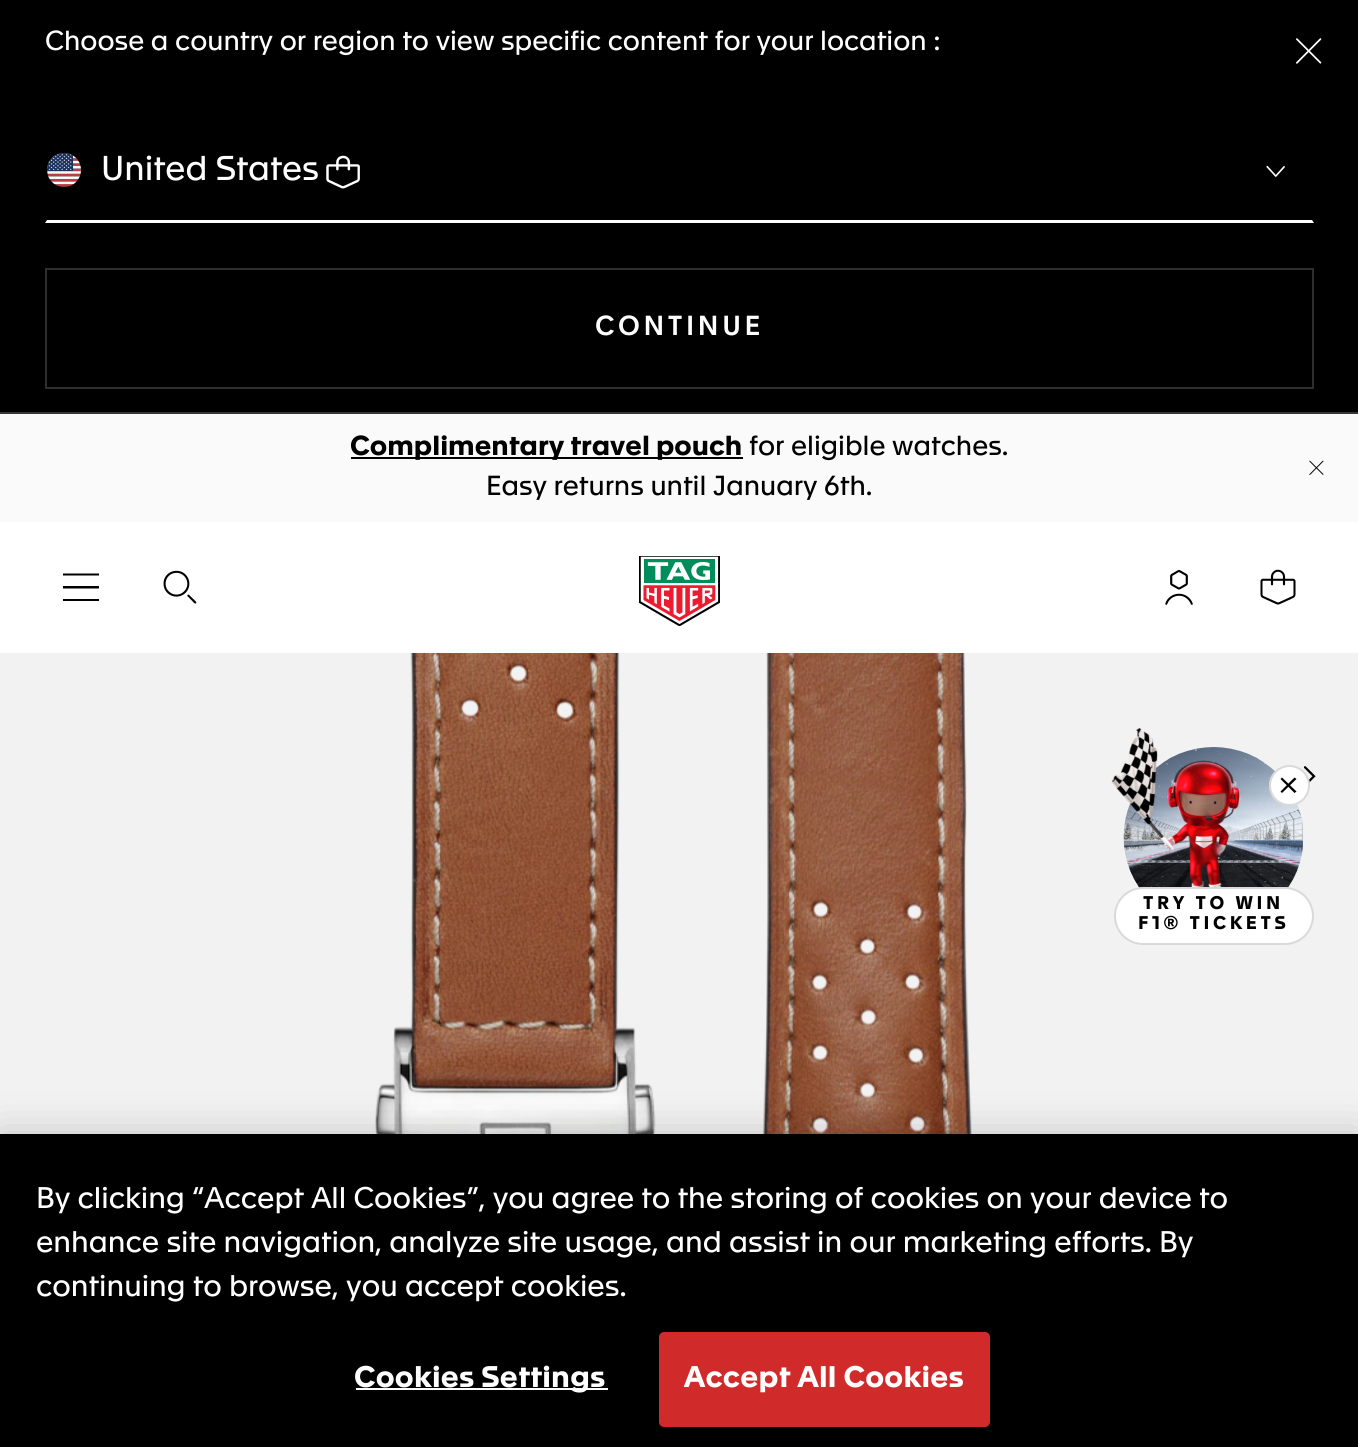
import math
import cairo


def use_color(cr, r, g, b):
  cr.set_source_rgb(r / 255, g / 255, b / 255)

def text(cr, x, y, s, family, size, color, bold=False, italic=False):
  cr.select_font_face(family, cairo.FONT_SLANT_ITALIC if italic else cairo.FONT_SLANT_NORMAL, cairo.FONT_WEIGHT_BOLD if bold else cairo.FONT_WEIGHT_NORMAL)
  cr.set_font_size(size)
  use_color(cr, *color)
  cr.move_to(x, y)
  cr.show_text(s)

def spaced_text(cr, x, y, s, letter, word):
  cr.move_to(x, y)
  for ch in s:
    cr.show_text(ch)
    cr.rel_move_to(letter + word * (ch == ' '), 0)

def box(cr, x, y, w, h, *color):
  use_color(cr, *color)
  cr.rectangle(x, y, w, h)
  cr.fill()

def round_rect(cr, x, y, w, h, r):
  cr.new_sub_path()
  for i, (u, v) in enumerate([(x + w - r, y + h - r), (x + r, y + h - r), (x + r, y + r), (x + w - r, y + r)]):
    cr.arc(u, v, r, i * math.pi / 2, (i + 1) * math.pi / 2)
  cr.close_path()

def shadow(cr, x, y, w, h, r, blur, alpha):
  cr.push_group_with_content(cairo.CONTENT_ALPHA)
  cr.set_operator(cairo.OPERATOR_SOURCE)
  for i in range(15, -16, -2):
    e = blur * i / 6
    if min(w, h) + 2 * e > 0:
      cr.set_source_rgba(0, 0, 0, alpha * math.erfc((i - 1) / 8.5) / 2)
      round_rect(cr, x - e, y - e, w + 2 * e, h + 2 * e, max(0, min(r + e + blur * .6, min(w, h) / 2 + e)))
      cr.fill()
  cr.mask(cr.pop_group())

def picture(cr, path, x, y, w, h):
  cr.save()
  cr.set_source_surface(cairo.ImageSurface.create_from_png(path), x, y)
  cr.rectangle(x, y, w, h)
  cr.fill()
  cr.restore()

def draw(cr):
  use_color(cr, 242, 242, 242)
  cr.paint()
  box(cr, 0, 522, 1358, 131, 255, 255, 255)
  box(cr, 0, 0, 1358, 412, 0, 0, 0)
  box(cr, 0, 412, 1358, 2, 54, 54, 54)
  picture(cr, "img_01.png", 1296, 38, 26, 26)
  use_color(cr, 255, 255, 255)
  cr.new_path()
  cr.move_to(1314, 223)
  cr.line_to(45, 223)
  cr.line_to(47, 220)
  cr.line_to(1312, 220)
  cr.close_path()
  cr.fill()
  picture(cr, "img_02.png", 47, 153, 34, 34)
  picture(cr, "img_03.png", 326, 155, 34, 34)
  picture(cr, "img_04.png", 1266, 165, 19, 12)
  cr.rectangle(46, 269, 1267, 119)
  use_color(cr, 46, 46, 46)
  cr.stroke()
  box(cr, 0, 414, 1358, 108, 250, 250, 250)
  box(cr, 351, 457, 392, 2, 0, 0, 0)
  picture(cr, "img_05.png", 1309, 460, 15, 15)
  picture(cr, "img_06.png", 639, 556, 81, 70)
  cr.new_path()
  cr.move_to(63, 573.5)
  cr.line_to(63, 575.5)
  cr.line_to(99, 575.5)
  cr.line_to(99, 573.5)
  cr.close_path()
  cr.move_to(63, 586)
  cr.line_to(63, 588.5)
  cr.line_to(99, 588.5)
  cr.line_to(99, 586)
  cr.close_path()
  cr.move_to(63, 599)
  cr.line_to(63, 601)
  cr.line_to(99, 601)
  cr.line_to(99, 599)
  cr.close_path()
  cr.fill()
  picture(cr, "img_07.png", 163, 570, 34, 34)
  picture(cr, "img_08.png", 1165, 570, 28, 35)
  picture(cr, "img_09.png", 1260, 569, 36, 36)
  picture(cr, "img_10.png", 375, 653, 597, 481)
  picture(cr, "img_11.png", 1303, 766, 13, 17)
  picture(cr, "img_13.png", 1123, 747, 180, 141)
  use_color(cr, 255, 255, 255)
  cr.arc(1289.5, 785.5, 20.5, 0, 2 * math.pi)
  cr.fill()
  cr.arc(1289.5, 785.5, 19.5, 0, 2 * math.pi)
  cr.set_source_rgba(0.588, 0.588, 0.588, 0.36)
  cr.stroke()
  use_color(cr, 0, 0, 0)
  cr.new_path()
  cr.move_to(1294.5, 777.5)
  cr.line_to(1296.5, 779)
  cr.line_to(1282, 793)
  cr.line_to(1280.5, 791.5)
  cr.close_path()
  cr.fill()
  cr.new_path()
  cr.move_to(1280.5, 779)
  cr.line_to(1282, 777.5)
  cr.line_to(1296.5, 791.5)
  cr.line_to(1294.5, 793)
  cr.close_path()
  cr.fill()
  picture(cr, "img_12.png", 1111, 727, 130, 160)
  use_color(cr, 255, 255, 255)
  round_rect(cr, 1114, 887, 200, 58, 29)
  cr.fill()
  round_rect(cr, 1115, 888, 198, 56, 28)
  cr.set_source_rgba(0.588, 0.588, 0.588, 0.36)
  cr.stroke()
  use_color(cr, 0, 0, 0)
  shadow(cr, 0, 1134, 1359, 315, 0, 20, 0.2)
  box(cr, 0, 1134, 1358, 313, 0, 0, 0)
  box(cr, 356, 1388, 252, 2, 255, 255, 255)
  use_color(cr, 209, 42, 43)
  round_rect(cr, 660, 1333, 329, 93, 4)
  cr.fill_preserve()
  cr.stroke()
  text(cr, 45, 50, "Choose a country or region to view specific content for your location :", "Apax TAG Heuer", 27, (255, 255, 255))
  text(cr, 101, 180, "United States", "Apax TAG Heuer", 33.75, (255, 255, 255))
  cr.select_font_face("Apax TAG Heuer Medium")
  cr.set_font_size(27)
  spaced_text(cr, 595, 335, "CONTINUE", 3.6, 0)
  text(cr, 350, 455, "Complimentary travel pouch", "Apax TAG Heuer", 27, (0, 0, 0), bold=True)
  text(cr, 749, 455, "for eligible watches.", "Apax TAG Heuer", 27, (0, 0, 0))
  text(cr, 486, 495, "Easy returns until January 6th.", "Apax TAG Heuer", 27, (0, 0, 0))
  cr.select_font_face("Apax TAG Heuer", cairo.FONT_SLANT_NORMAL, cairo.FONT_WEIGHT_BOLD)
  cr.set_font_size(18)
  spaced_text(cr, 1143, 909, "TRY TO WIN", 3.6, 0)
  spaced_text(cr, 1138, 929, "F1® TICKETS", 3.6, 0)
  text(cr, 36, 1208, "By clicking “Accept All Cookies”, you agree to the storing of cookies on your device to", "Apax TAG Heuer", 29.25, (255, 255, 255))
  text(cr, 36, 1252, "enhance site navigation, analyze site usage, and assist in our marketing efforts. By", "Apax TAG Heuer", 29.25, (255, 255, 255))
  text(cr, 36, 1296, "continuing to browse, you accept cookies.", "Apax TAG Heuer", 29.25, (255, 255, 255))
  cr.select_font_face("Apax TAG Heuer", cairo.FONT_SLANT_NORMAL, cairo.FONT_WEIGHT_BOLD)
  spaced_text(cr, 354, 1387, "Cookies Settings", 0.25, 0)
  spaced_text(cr, 684, 1387, "Accept All Cookies", 0.25, 0)


surface = cairo.ImageSurface(cairo.FORMAT_RGB24, 1358, 1447)
cr = cairo.Context(surface)
options = cairo.FontOptions()
options.set_hint_metrics(cairo.HINT_METRICS_OFF)
options.set_hint_style(cairo.HINT_STYLE_NONE)
cr.set_font_options(options)
cr.set_miter_limit(4)
draw(cr)
surface.write_to_png("out.png")
